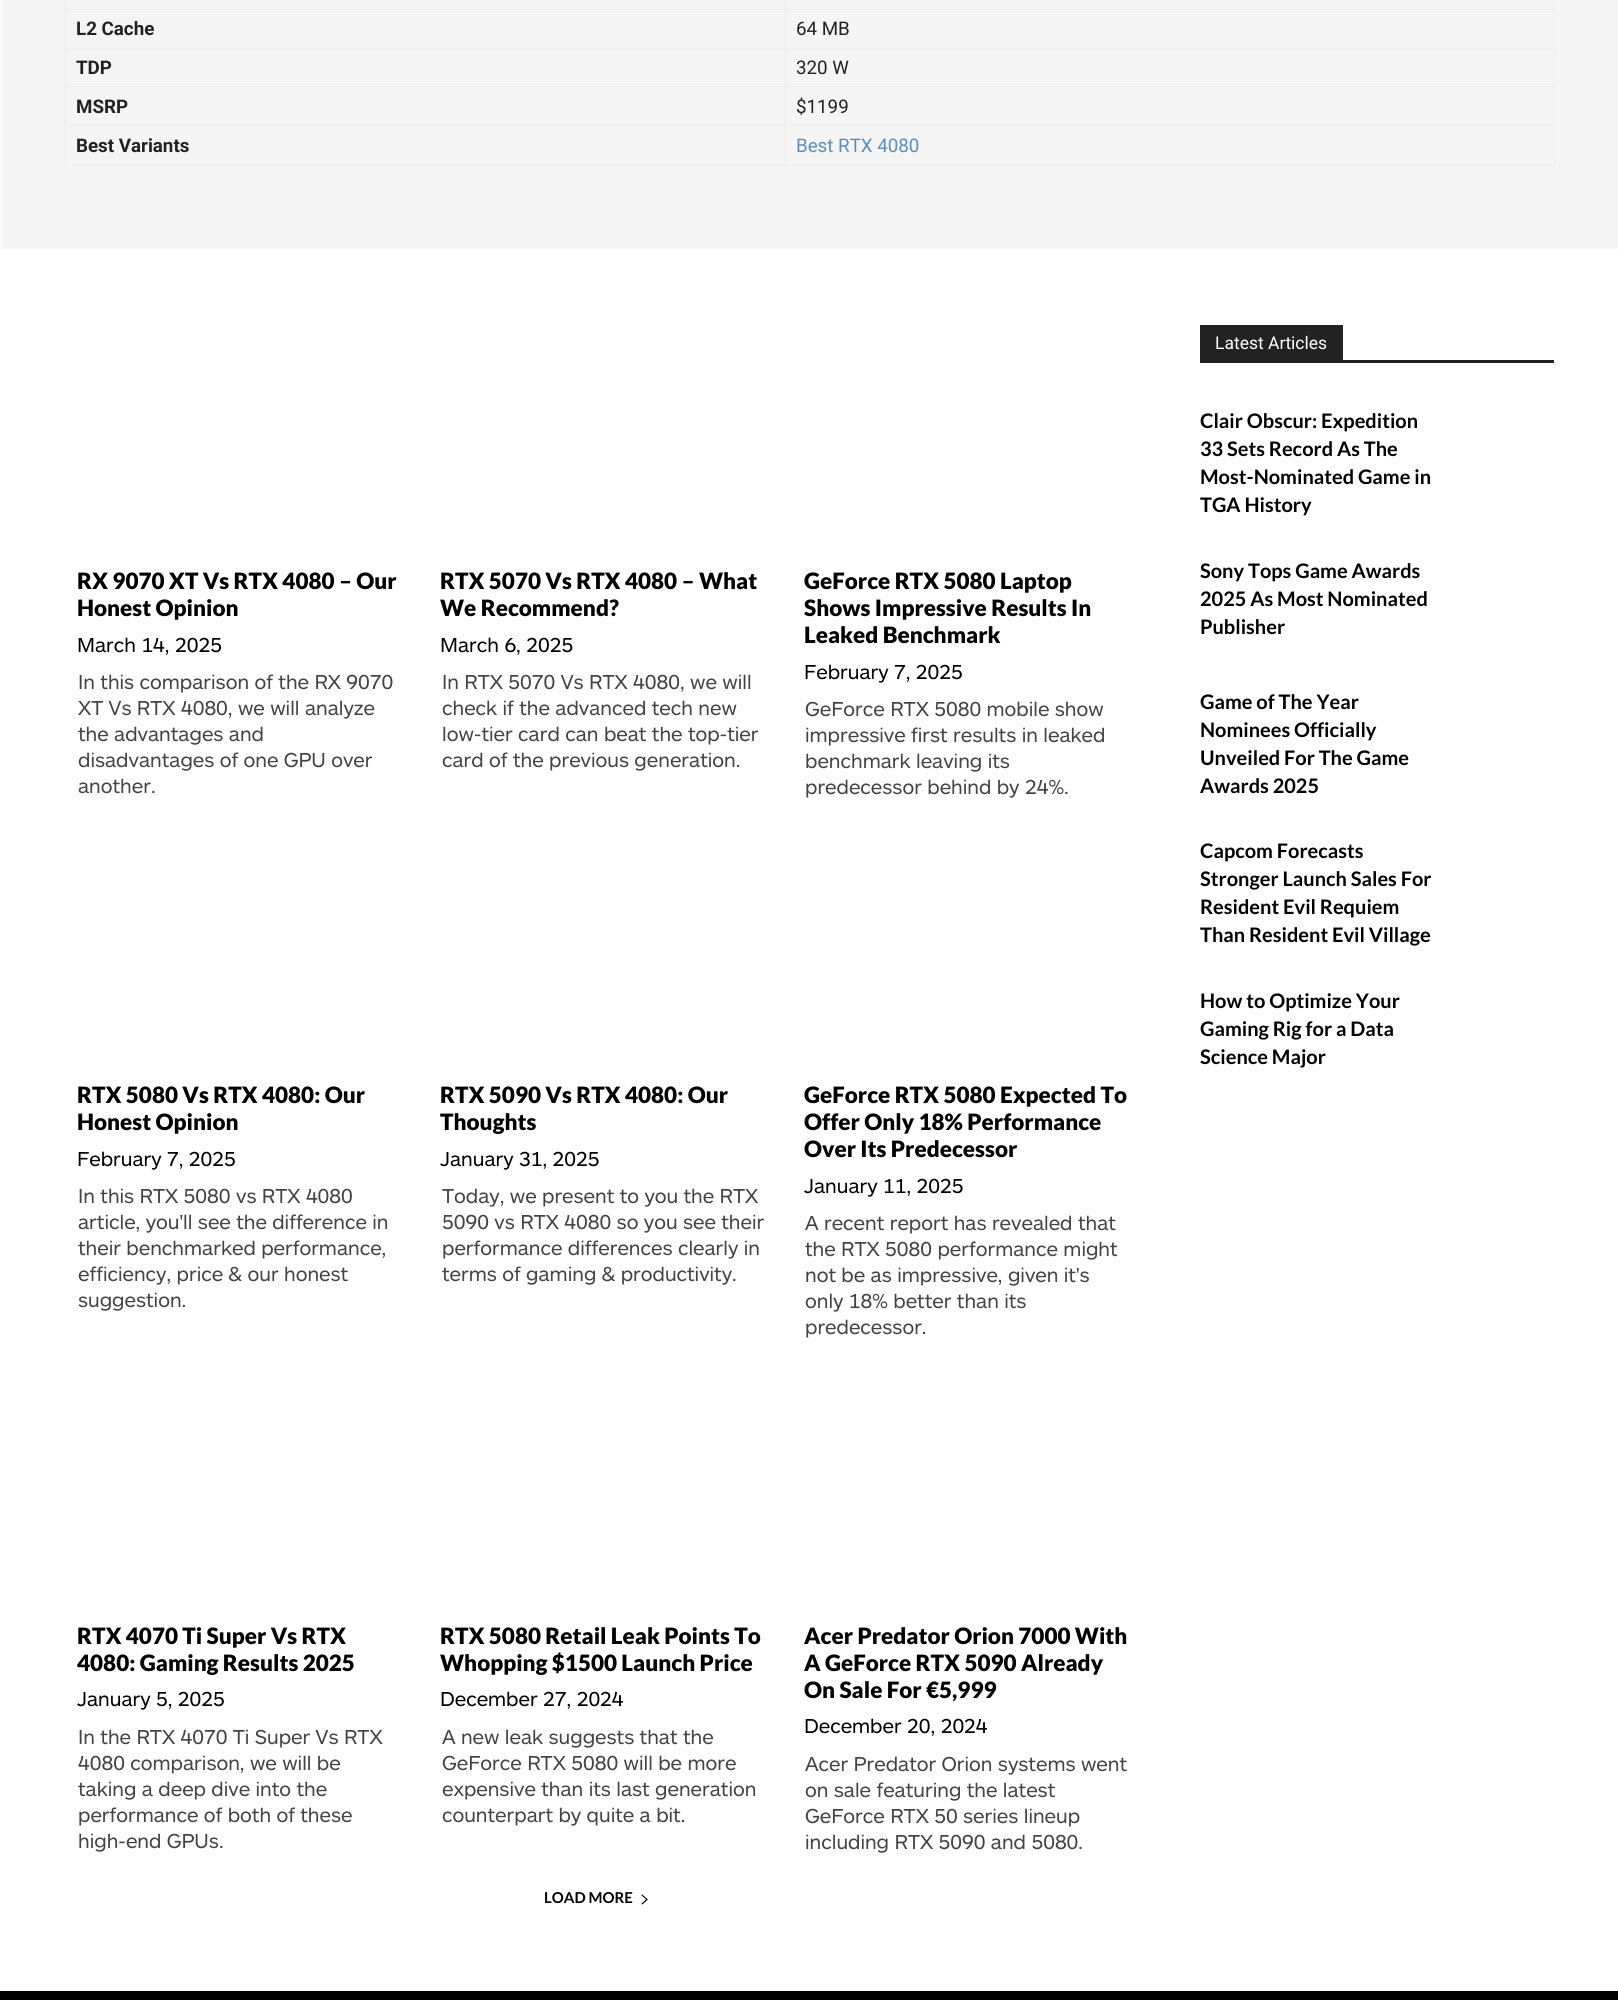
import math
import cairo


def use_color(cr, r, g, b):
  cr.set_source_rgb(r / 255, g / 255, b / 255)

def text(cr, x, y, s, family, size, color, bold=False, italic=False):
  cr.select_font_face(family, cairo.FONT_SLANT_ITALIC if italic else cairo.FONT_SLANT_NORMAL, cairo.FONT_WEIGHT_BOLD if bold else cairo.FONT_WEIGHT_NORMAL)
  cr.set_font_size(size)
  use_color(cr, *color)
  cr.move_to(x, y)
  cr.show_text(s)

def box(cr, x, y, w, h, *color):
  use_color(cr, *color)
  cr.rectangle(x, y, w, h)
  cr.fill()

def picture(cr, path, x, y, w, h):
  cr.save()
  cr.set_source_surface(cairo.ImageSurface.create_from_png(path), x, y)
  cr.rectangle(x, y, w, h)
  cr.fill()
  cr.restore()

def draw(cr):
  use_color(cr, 255, 255, 255)
  cr.paint()
  box(cr, 1, 0, 1617, 249, 245, 245, 245)
  box(cr, 785, 9, 770, 1, 237, 237, 237)
  box(cr, 785, 48, 770, 1, 237, 237, 237)
  box(cr, 785, 86, 770, 1, 237, 237, 237)
  box(cr, 785, 125, 770, 1, 237, 237, 237)
  box(cr, 1554, 125, 1, 41, 237, 237, 237)
  box(cr, 785, 165, 770, 1, 237, 237, 237)
  box(cr, 785, 125, 1, 41, 237, 237, 237)
  box(cr, 65, 125, 721, 1, 237, 237, 237)
  box(cr, 785, 86, 1, 40, 237, 237, 237)
  box(cr, 65, 86, 721, 1, 237, 237, 237)
  box(cr, 785, 48, 1, 40, 237, 237, 237)
  box(cr, 65, 48, 721, 1, 237, 237, 237)
  box(cr, 785, 9, 1, 40, 237, 237, 237)
  box(cr, 65, 9, 721, 1, 237, 237, 237)
  box(cr, 785, 0, 1, 10, 237, 237, 237)
  box(cr, 65, 165, 721, 1, 237, 237, 237)
  box(cr, 65, 125, 1, 41, 237, 237, 237)
  box(cr, 65, 86, 1, 40, 237, 237, 237)
  box(cr, 65, 48, 1, 40, 237, 237, 237)
  box(cr, 65, 0, 1, 49, 237, 237, 237)
  box(cr, 1554, 86, 1, 40, 237, 237, 237)
  box(cr, 1554, 48, 1, 40, 237, 237, 237)
  box(cr, 1554, 0, 1, 49, 237, 237, 237)
  picture(cr, "img_01.png", 641, 1894, 7, 11)
  box(cr, 1200, 360, 354, 3, 34, 34, 34)
  box(cr, 1200, 325, 143, 35, 34, 34, 34)
  box(cr, 0, 1991, 1618, 9, 0, 0, 0)
  text(cr, 76, 35, "L2 Cache", "Roboto", 18.75, (34, 34, 34), bold=True)
  text(cr, 796, 35, "64 MB", "Roboto", 18.75, (34, 34, 34))
  text(cr, 76, 74, "TDP", "Roboto", 18.75, (34, 34, 34), bold=True)
  text(cr, 796, 74, "320 W", "Roboto", 18.75, (34, 34, 34))
  text(cr, 76, 113, "MSRP", "Roboto", 18.75, (34, 34, 34), bold=True)
  text(cr, 796, 113, "$1199", "Roboto", 18.75, (34, 34, 34))
  text(cr, 76, 152, "Best Variants", "Roboto", 18.75, (34, 34, 34), bold=True)
  text(cr, 796, 152, "Best RTX 4080", "Roboto", 18.75, (89, 143, 191))
  text(cr, 77, 589, "RX 9070 XT Vs RTX 4080 – Our", "Lato Black", 22.5, (0, 0, 0))
  text(cr, 77, 616, "Honest Opinion", "Lato Black", 22.5, (0, 0, 0))
  text(cr, 77, 652, "March 14, 2025", "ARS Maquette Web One", 20, (0, 0, 0))
  text(cr, 78, 689, "In this comparison of the RX 9070", "ARS Maquette Web One", 20, (68, 68, 68))
  text(cr, 78, 715, "XT Vs RTX 4080, we will analyze", "ARS Maquette Web One", 20, (68, 68, 68))
  text(cr, 78, 741, "the advantages and", "ARS Maquette Web One", 20, (68, 68, 68))
  text(cr, 78, 767, "disadvantages of one GPU over", "ARS Maquette Web One", 20, (68, 68, 68))
  text(cr, 78, 793, "another.", "ARS Maquette Web One", 20, (68, 68, 68))
  text(cr, 440, 589, "RTX 5070 Vs RTX 4080 – What", "Lato Black", 22.5, (0, 0, 0))
  text(cr, 440, 616, "We Recommend?", "Lato Black", 22.5, (0, 0, 0))
  text(cr, 440, 652, "March 6, 2025", "ARS Maquette Web One", 20, (0, 0, 0))
  text(cr, 442, 689, "In RTX 5070 Vs RTX 4080, we will", "ARS Maquette Web One", 20, (68, 68, 68))
  text(cr, 442, 715, "check if the advanced tech new", "ARS Maquette Web One", 20, (68, 68, 68))
  text(cr, 442, 741, "low-tier card can beat the top-tier", "ARS Maquette Web One", 20, (68, 68, 68))
  text(cr, 442, 767, "card of the previous generation.", "ARS Maquette Web One", 20, (68, 68, 68))
  text(cr, 804, 589, "GeForce RTX 5080 Laptop", "Lato Black", 22.5, (0, 0, 0))
  text(cr, 804, 616, "Shows Impressive Results In", "Lato Black", 22.5, (0, 0, 0))
  text(cr, 804, 643, "Leaked Benchmark", "Lato Black", 22.5, (0, 0, 0))
  text(cr, 804, 679, "February 7, 2025", "ARS Maquette Web One", 20, (0, 0, 0))
  text(cr, 805, 716, "GeForce RTX 5080 mobile show", "ARS Maquette Web One", 20, (68, 68, 68))
  text(cr, 805, 742, "impressive first results in leaked", "ARS Maquette Web One", 20, (68, 68, 68))
  text(cr, 805, 768, "benchmark leaving its", "ARS Maquette Web One", 20, (68, 68, 68))
  text(cr, 805, 794, "predecessor behind by 24%.", "ARS Maquette Web One", 20, (68, 68, 68))
  text(cr, 77, 1103, "RTX 5080 Vs RTX 4080: Our", "Lato Black", 22.5, (0, 0, 0))
  text(cr, 77, 1130, "Honest Opinion", "Lato Black", 22.5, (0, 0, 0))
  text(cr, 77, 1166, "February 7, 2025", "ARS Maquette Web One", 20, (0, 0, 0))
  text(cr, 78, 1203, "In this RTX 5080 vs RTX 4080", "ARS Maquette Web One", 20, (68, 68, 68))
  text(cr, 78, 1229, "article, you'll see the difference in", "ARS Maquette Web One", 20, (68, 68, 68))
  text(cr, 78, 1255, "their benchmarked performance,", "ARS Maquette Web One", 20, (68, 68, 68))
  text(cr, 78, 1281, "efficiency, price & our honest", "ARS Maquette Web One", 20, (68, 68, 68))
  text(cr, 78, 1307, "suggestion.", "ARS Maquette Web One", 20, (68, 68, 68))
  text(cr, 440, 1103, "RTX 5090 Vs RTX 4080: Our", "Lato Black", 22.5, (0, 0, 0))
  text(cr, 440, 1130, "Thoughts", "Lato Black", 22.5, (0, 0, 0))
  text(cr, 440, 1166, "January 31, 2025", "ARS Maquette Web One", 20, (0, 0, 0))
  text(cr, 442, 1203, "Today, we present to you the RTX", "ARS Maquette Web One", 20, (68, 68, 68))
  text(cr, 442, 1229, "5090 vs RTX 4080 so you see their", "ARS Maquette Web One", 20, (68, 68, 68))
  text(cr, 442, 1255, "performance differences clearly in", "ARS Maquette Web One", 20, (68, 68, 68))
  text(cr, 442, 1281, "terms of gaming & productivity.", "ARS Maquette Web One", 20, (68, 68, 68))
  text(cr, 804, 1103, "GeForce RTX 5080 Expected To", "Lato Black", 22.5, (0, 0, 0))
  text(cr, 804, 1130, "Offer Only 18% Performance", "Lato Black", 22.5, (0, 0, 0))
  text(cr, 804, 1157, "Over Its Predecessor", "Lato Black", 22.5, (0, 0, 0))
  text(cr, 804, 1193, "January 11, 2025", "ARS Maquette Web One", 20, (0, 0, 0))
  text(cr, 805, 1230, "A recent report has revealed that", "ARS Maquette Web One", 20, (68, 68, 68))
  text(cr, 805, 1256, "the RTX 5080 performance might", "ARS Maquette Web One", 20, (68, 68, 68))
  text(cr, 805, 1282, "not be as impressive, given it's", "ARS Maquette Web One", 20, (68, 68, 68))
  text(cr, 805, 1308, "only 18% better than its", "ARS Maquette Web One", 20, (68, 68, 68))
  text(cr, 805, 1334, "predecessor.", "ARS Maquette Web One", 20, (68, 68, 68))
  text(cr, 77, 1644, "RTX 4070 Ti Super Vs RTX", "Lato Black", 22.5, (0, 0, 0))
  text(cr, 77, 1671, "4080: Gaming Results 2025", "Lato Black", 22.5, (0, 0, 0))
  text(cr, 77, 1706, "January 5, 2025", "ARS Maquette Web One", 20, (0, 0, 0))
  text(cr, 78, 1744, "In the RTX 4070 Ti Super Vs RTX", "ARS Maquette Web One", 20, (68, 68, 68))
  text(cr, 78, 1770, "4080 comparison, we will be", "ARS Maquette Web One", 20, (68, 68, 68))
  text(cr, 78, 1796, "taking a deep dive into the", "ARS Maquette Web One", 20, (68, 68, 68))
  text(cr, 78, 1822, "performance of both of these", "ARS Maquette Web One", 20, (68, 68, 68))
  text(cr, 78, 1848, "high-end GPUs.", "ARS Maquette Web One", 20, (68, 68, 68))
  text(cr, 440, 1644, "RTX 5080 Retail Leak Points To", "Lato Black", 22.5, (0, 0, 0))
  text(cr, 440, 1671, "Whopping $1500 Launch Price", "Lato Black", 22.5, (0, 0, 0))
  text(cr, 440, 1706, "December 27, 2024", "ARS Maquette Web One", 20, (0, 0, 0))
  text(cr, 442, 1744, "A new leak suggests that the", "ARS Maquette Web One", 20, (68, 68, 68))
  text(cr, 442, 1770, "GeForce RTX 5080 will be more", "ARS Maquette Web One", 20, (68, 68, 68))
  text(cr, 442, 1796, "expensive than its last generation", "ARS Maquette Web One", 20, (68, 68, 68))
  text(cr, 442, 1822, "counterpart by quite a bit.", "ARS Maquette Web One", 20, (68, 68, 68))
  text(cr, 804, 1644, "Acer Predator Orion 7000 With", "Lato Black", 22.5, (0, 0, 0))
  text(cr, 804, 1671, "A GeForce RTX 5090 Already", "Lato Black", 22.5, (0, 0, 0))
  text(cr, 804, 1698, "On Sale For €5,999", "Lato Black", 22.5, (0, 0, 0))
  text(cr, 804, 1733, "December 20, 2024", "ARS Maquette Web One", 20, (0, 0, 0))
  text(cr, 805, 1771, "Acer Predator Orion systems went", "ARS Maquette Web One", 20, (68, 68, 68))
  text(cr, 805, 1797, "on sale featuring the latest", "ARS Maquette Web One", 20, (68, 68, 68))
  text(cr, 805, 1823, "GeForce RTX 50 series lineup", "ARS Maquette Web One", 20, (68, 68, 68))
  text(cr, 805, 1849, "including RTX 5090 and 5080.", "ARS Maquette Web One", 20, (68, 68, 68))
  text(cr, 544, 1903, "LOAD MORE", "Lato", 15, (0, 0, 0), bold=True)
  text(cr, 1215, 349, "Latest Articles", "Roboto", 17.5, (255, 255, 255))
  text(cr, 1200, 428, "Clair Obscur: Expedition", "Lato", 20, (0, 0, 0), bold=True)
  text(cr, 1200, 456, "33 Sets Record As The", "Lato", 20, (0, 0, 0), bold=True)
  text(cr, 1200, 484, "Most-Nominated Game in", "Lato", 20, (0, 0, 0), bold=True)
  text(cr, 1200, 512, "TGA History", "Lato", 20, (0, 0, 0), bold=True)
  text(cr, 1200, 578, "Sony Tops Game Awards", "Lato", 20, (0, 0, 0), bold=True)
  text(cr, 1200, 606, "2025 As Most Nominated", "Lato", 20, (0, 0, 0), bold=True)
  text(cr, 1200, 634, "Publisher", "Lato", 20, (0, 0, 0), bold=True)
  text(cr, 1200, 709, "Game of The Year", "Lato", 20, (0, 0, 0), bold=True)
  text(cr, 1200, 737, "Nominees Officially", "Lato", 20, (0, 0, 0), bold=True)
  text(cr, 1200, 765, "Unveiled For The Game", "Lato", 20, (0, 0, 0), bold=True)
  text(cr, 1200, 793, "Awards 2025", "Lato", 20, (0, 0, 0), bold=True)
  text(cr, 1200, 858, "Capcom Forecasts", "Lato", 20, (0, 0, 0), bold=True)
  text(cr, 1200, 886, "Stronger Launch Sales For", "Lato", 20, (0, 0, 0), bold=True)
  text(cr, 1200, 914, "Resident Evil Requiem", "Lato", 20, (0, 0, 0), bold=True)
  text(cr, 1200, 942, "Than Resident Evil Village", "Lato", 20, (0, 0, 0), bold=True)
  text(cr, 1200, 1008, "How to Optimize Your", "Lato", 20, (0, 0, 0), bold=True)
  text(cr, 1200, 1036, "Gaming Rig for a Data", "Lato", 20, (0, 0, 0), bold=True)
  text(cr, 1200, 1064, "Science Major", "Lato", 20, (0, 0, 0), bold=True)


surface = cairo.ImageSurface(cairo.FORMAT_RGB24, 1618, 2000)
cr = cairo.Context(surface)
options = cairo.FontOptions()
options.set_hint_metrics(cairo.HINT_METRICS_OFF)
options.set_hint_style(cairo.HINT_STYLE_NONE)
cr.set_font_options(options)
cr.set_miter_limit(4)
draw(cr)
surface.write_to_png("out.png")
